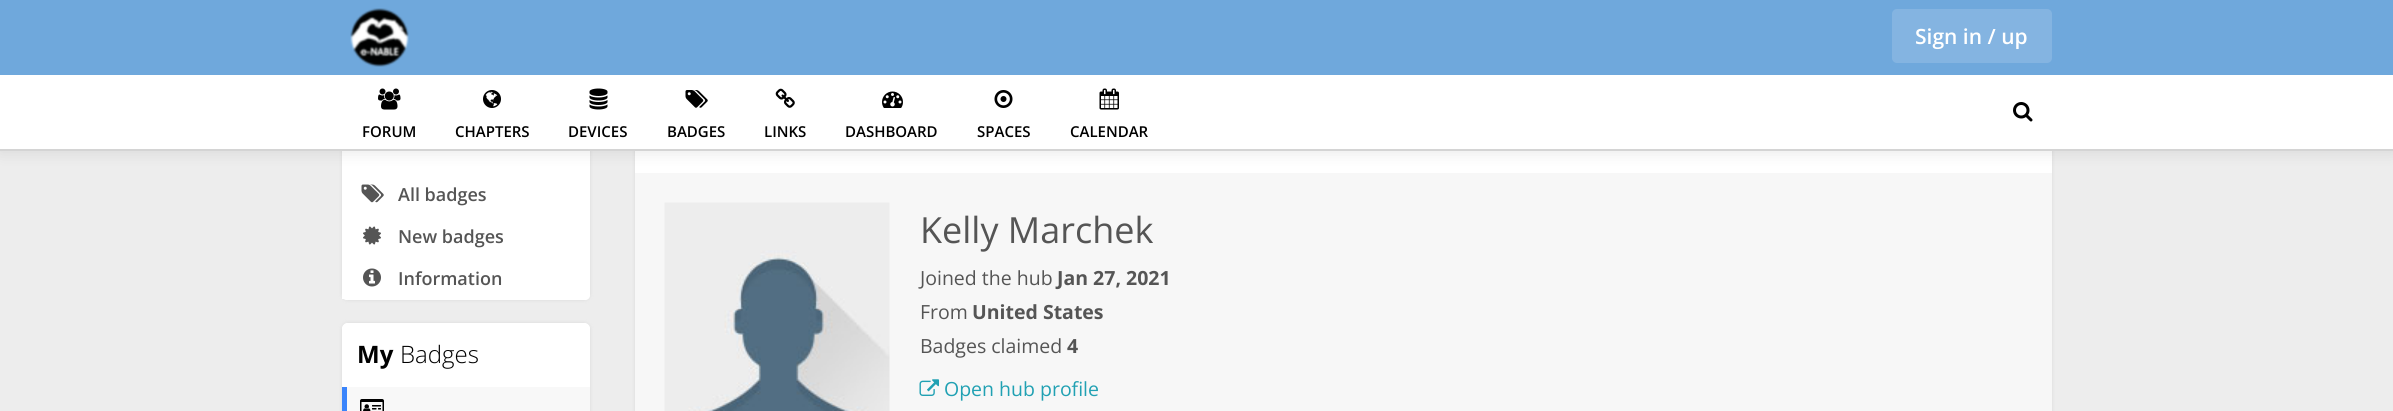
import math
import cairo


def use_color(cr, r, g, b):
  cr.set_source_rgb(r / 255, g / 255, b / 255)

def text(cr, x, y, s, family, size, color, bold=False, italic=False):
  cr.select_font_face(family, cairo.FONT_SLANT_ITALIC if italic else cairo.FONT_SLANT_NORMAL, cairo.FONT_WEIGHT_BOLD if bold else cairo.FONT_WEIGHT_NORMAL)
  cr.set_font_size(size)
  use_color(cr, *color)
  cr.move_to(x, y)
  cr.show_text(s)

def box(cr, x, y, w, h, *color):
  use_color(cr, *color)
  cr.rectangle(x, y, w, h)
  cr.fill()

def round_rect(cr, x, y, w, h, r):
  cr.new_sub_path()
  for i, (u, v) in enumerate([(x + w - r, y + h - r), (x + r, y + h - r), (x + r, y + r), (x + w - r, y + r)]):
    cr.arc(u, v, r, i * math.pi / 2, (i + 1) * math.pi / 2)
  cr.close_path()

def shadow(cr, x, y, w, h, r, blur, alpha):
  cr.push_group_with_content(cairo.CONTENT_ALPHA)
  cr.set_operator(cairo.OPERATOR_SOURCE)
  for i in range(15, -16, -2):
    e = blur * i / 6
    if min(w, h) + 2 * e > 0:
      cr.set_source_rgba(0, 0, 0, alpha * math.erfc((i - 1) / 8.5) / 2)
      round_rect(cr, x - e, y - e, w + 2 * e, h + 2 * e, max(0, min(r + e + blur * .6, min(w, h) / 2 + e)))
      cr.fill()
  cr.mask(cr.pop_group())

def picture(cr, path, x, y, w, h):
  cr.save()
  cr.set_source_surface(cairo.ImageSurface.create_from_png(path), x, y)
  cr.rectangle(x, y, w, h)
  cr.fill()
  cr.restore()

def draw(cr):
  use_color(cr, 237, 237, 237)
  cr.paint()
  use_color(cr, 218, 218, 218)
  shadow(cr, 342, 108, 248, 192, 6, 2, 1)
  use_color(cr, 255, 255, 255)
  round_rect(cr, 342, 108, 248, 192, 6)
  cr.fill()
  round_rect(cr, 342, 108, 248, 65, 6)
  cr.fill()
  use_color(cr, 218, 218, 218)
  shadow(cr, 635, 108, 1417, 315, 6, 2, 1)
  box(cr, 635, 167, 1417, 6, 255, 255, 255)
  round_rect(cr, 635, 108, 1417, 65, 6)
  cr.fill()
  box(cr, 635, 173, 1417, 238, 247, 247, 247)
  use_color(cr, 0, 0, 0)
  shadow(cr, 0, 77, 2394, 75, 0, 7.5, 0.1)
  box(cr, 0, 0, 2393, 75, 111, 168, 220)
  picture(cr, "img_01.png", 350, 8, 59, 59)
  use_color(cr, 132, 180, 225)
  round_rect(cr, 1892, 9, 160, 54, 5)
  cr.fill()
  box(cr, 0, 75, 2393, 74, 255, 255, 255)
  box(cr, 0, 149, 2393, 2, 212, 212, 212)
  picture(cr, "img_02.png", 2013, 102, 20, 20)
  picture(cr, "img_03.png", 378, 88, 23, 22)
  picture(cr, "img_04.png", 483, 90, 18, 18)
  picture(cr, "img_05.png", 589, 88, 19, 22)
  picture(cr, "img_06.png", 685, 90, 23, 18)
  picture(cr, "img_07.png", 775, 88, 20, 20)
  picture(cr, "img_08.png", 882, 91, 21, 17)
  picture(cr, "img_09.png", 994, 90, 19, 18)
  picture(cr, "img_10.png", 1099, 88, 20, 22)
  picture(cr, "img_11.png", 361, 184, 23, 19)
  picture(cr, "img_12.png", 363, 226, 18, 19)
  use_color(cr, 255, 255, 255)
  cr.new_path()
  cr.move_to(342, 257)
  cr.line_to(590, 257)
  cr.line_to(590, 295)
  cr.curve_to(590, 298, 588, 300, 585, 300)
  cr.line_to(347, 300)
  cr.curve_to(344, 300, 342, 298, 342, 295)
  cr.close_path()
  cr.fill()
  box(cr, 342, 296, 2, 3, 255, 255, 255)
  picture(cr, "img_13.png", 363, 268, 18, 19)
  use_color(cr, 218, 218, 218)
  shadow(cr, 342, 323, 248, 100, 6, 2, 1)
  use_color(cr, 255, 255, 255)
  round_rect(cr, 342, 323, 248, 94, 6)
  cr.fill()
  round_rect(cr, 342, 323, 248, 64, 6)
  cr.fill()
  box(cr, 347, 387, 243, 24, 248, 248, 248)
  box(cr, 342, 387, 5, 24, 58, 132, 251)
  picture(cr, "img_14.png", 360, 399, 24, 12)
  picture(cr, "img_15.png", 664, 202, 226, 209)
  picture(cr, "img_16.png", 919, 379, 20, 17)
  text(cr, 1915, 44, "Sign in / up", "Open Sans SemiBold", 21, (255, 255, 255))
  text(cr, 362, 137, "FORUM", "Open Sans SemiBold", 15, (0, 0, 0))
  text(cr, 455, 137, "CHAPTERS", "Open Sans SemiBold", 15, (0, 0, 0))
  text(cr, 568, 137, "DEVICES", "Open Sans SemiBold", 15, (0, 0, 0))
  text(cr, 667, 137, "BADGES", "Open Sans SemiBold", 15, (0, 0, 0))
  text(cr, 764, 137, "LINKS", "Open Sans SemiBold", 15, (0, 0, 0))
  text(cr, 845, 137, "DASHBOARD", "Open Sans SemiBold", 15, (0, 0, 0))
  text(cr, 977, 137, "SPACES", "Open Sans SemiBold", 15, (0, 0, 0))
  text(cr, 1070, 137, "CALENDAR", "Open Sans SemiBold", 15, (0, 0, 0))
  text(cr, 398, 201, "All badges", "Open Sans SemiBold", 18, (85, 85, 85))
  text(cr, 398, 243, "New badges", "Open Sans SemiBold", 18, (85, 85, 85))
  text(cr, 398, 285, "Information", "Open Sans SemiBold", 18, (85, 85, 85))
  text(cr, 357, 363, "My", "Open Sans", 24, (0, 0, 0), bold=True)
  text(cr, 400, 363, "Badges", "Open Sans Light", 24, (0, 0, 0))
  text(cr, 920, 243, "Kelly Marchek", "Open Sans", 36, (85, 85, 85))
  text(cr, 920, 285, "Joined the hub", "Open Sans", 19.5, (85, 85, 85))
  text(cr, 1057, 285, "Jan 27, 2021", "Open Sans", 19.5, (85, 85, 85), bold=True)
  text(cr, 920, 319, "From", "Open Sans", 19.5, (85, 85, 85))
  text(cr, 972, 319, "United States", "Open Sans", 19.5, (85, 85, 85), bold=True)
  text(cr, 920, 353, "Badges claimed", "Open Sans", 19.5, (85, 85, 85))
  text(cr, 1067, 353, "4", "Open Sans", 19.5, (85, 85, 85), bold=True)
  text(cr, 944, 396, "Open hub profile", "Open Sans", 19.5, (33, 161, 179))


surface = cairo.ImageSurface(cairo.FORMAT_RGB24, 2393, 411)
cr = cairo.Context(surface)
options = cairo.FontOptions()
options.set_hint_metrics(cairo.HINT_METRICS_OFF)
options.set_hint_style(cairo.HINT_STYLE_NONE)
cr.set_font_options(options)
cr.set_miter_limit(4)
draw(cr)
surface.write_to_png("out.png")
